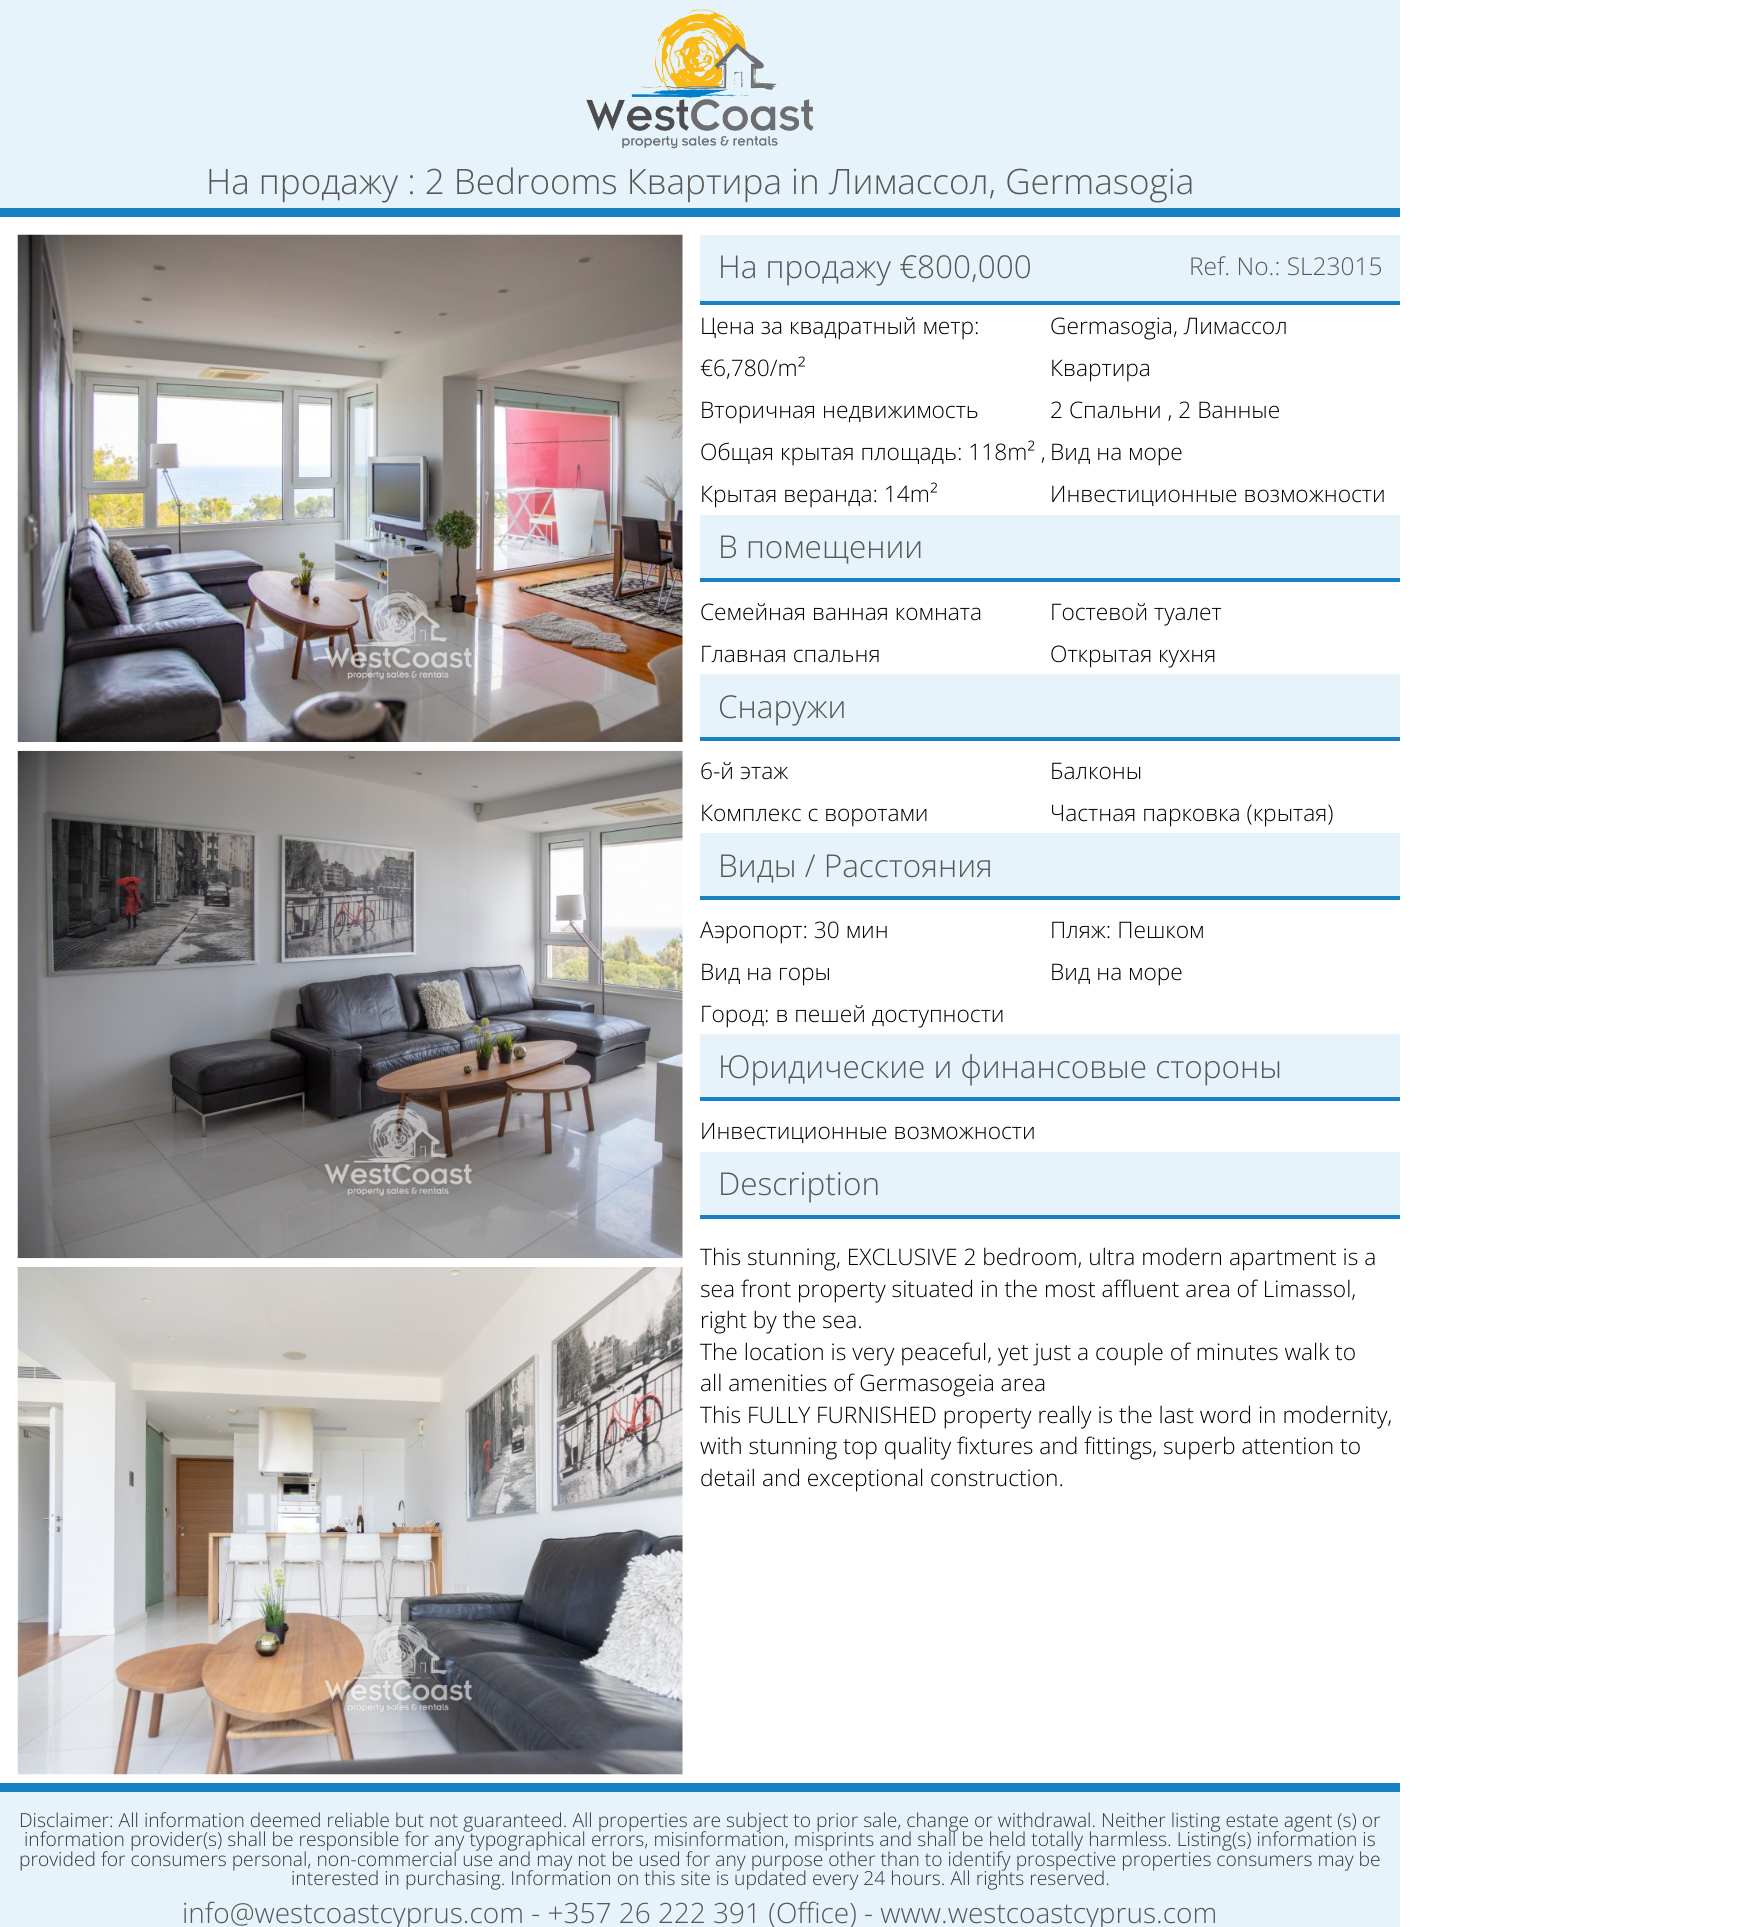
import math
import cairo


def use_color(cr, r, g, b):
  cr.set_source_rgb(r / 255, g / 255, b / 255)

def text(cr, x, y, s, family, size, color, bold=False, italic=False):
  cr.select_font_face(family, cairo.FONT_SLANT_ITALIC if italic else cairo.FONT_SLANT_NORMAL, cairo.FONT_WEIGHT_BOLD if bold else cairo.FONT_WEIGHT_NORMAL)
  cr.set_font_size(size)
  use_color(cr, *color)
  cr.move_to(x, y)
  cr.show_text(s)

def box(cr, x, y, w, h, *color):
  use_color(cr, *color)
  cr.rectangle(x, y, w, h)
  cr.fill()

def picture(cr, path, x, y, w, h):
  cr.save()
  cr.set_source_surface(cairo.ImageSurface.create_from_png(path), x, y)
  cr.rectangle(x, y, w, h)
  cr.fill()
  cr.restore()

def draw(cr):
  use_color(cr, 255, 255, 255)
  cr.paint()
  box(cr, 0, 0, 1400, 208, 231, 243, 250)
  picture(cr, "img_01.png", 586, 9, 228, 140)
  box(cr, 0, 208, 1400, 9, 23, 129, 195)
  picture(cr, "img_02.png", 17, 234, 666, 508)
  picture(cr, "img_03.png", 17, 750, 666, 509)
  picture(cr, "img_04.png", 17, 1267, 666, 508)
  box(cr, 700, 235, 700, 66, 231, 243, 250)
  box(cr, 700, 301, 700, 4, 23, 129, 195)
  box(cr, 700, 515, 700, 63, 231, 243, 250)
  box(cr, 700, 578, 700, 4, 23, 129, 195)
  box(cr, 700, 674, 700, 63, 231, 243, 250)
  box(cr, 700, 737, 700, 4, 23, 129, 195)
  box(cr, 700, 833, 700, 63, 231, 243, 250)
  box(cr, 700, 896, 700, 4, 23, 129, 195)
  box(cr, 700, 1034, 700, 63, 231, 243, 250)
  box(cr, 700, 1097, 700, 4, 23, 129, 195)
  box(cr, 700, 1152, 700, 63, 231, 243, 250)
  box(cr, 700, 1215, 700, 4, 23, 129, 195)
  box(cr, 0, 1792, 1400, 135, 231, 243, 250)
  box(cr, 0, 1783, 1400, 9, 23, 129, 195)
  text(cr, 206, 194, "На продажу : 2 Bedrooms Квартира in Лимассол, Germasogia", "Open Sans Light", 35, (87, 87, 87))
  text(cr, 718, 278, "На продажу €800,000", "Open Sans Light", 31.5, (87, 87, 87))
  text(cr, 1189, 275, "Ref. No.: SL23015", "Open Sans Light", 24.5, (87, 87, 87))
  text(cr, 700, 334, "Цена за квадратный метр:", "Open Sans Light", 22.75, (0, 0, 0))
  text(cr, 700, 376, "€6,780/m²", "Open Sans Light", 22.75, (0, 0, 0))
  text(cr, 1050, 334, "Germasogia, Лимассол", "Open Sans Light", 22.75, (0, 0, 0))
  text(cr, 1050, 376, "Квартира", "Open Sans Light", 22.75, (0, 0, 0))
  text(cr, 700, 418, "Вторичная недвижимость", "Open Sans Light", 22.75, (0, 0, 0))
  text(cr, 1050, 418, "2 Спальни , 2 Ванные", "Open Sans Light", 22.75, (0, 0, 0))
  text(cr, 700, 460, "Общая крытая площадь: 118m² ,", "Open Sans Light", 22.75, (0, 0, 0))
  text(cr, 700, 502, "Крытая веранда: 14m²", "Open Sans Light", 22.75, (0, 0, 0))
  text(cr, 1050, 460, "Вид на море", "Open Sans Light", 22.75, (0, 0, 0))
  text(cr, 1050, 502, "Инвестиционные возможности", "Open Sans Light", 22.75, (0, 0, 0))
  text(cr, 718, 558, "В помещении", "Open Sans Light", 31.5, (87, 87, 87))
  text(cr, 700, 620, "Семейная ванная комната", "Open Sans Light", 22.75, (0, 0, 0))
  text(cr, 1050, 620, "Гостевой туалет", "Open Sans Light", 22.75, (0, 0, 0))
  text(cr, 700, 662, "Главная спальня", "Open Sans Light", 22.75, (0, 0, 0))
  text(cr, 1050, 662, "Открытая кухня", "Open Sans Light", 22.75, (0, 0, 0))
  text(cr, 718, 718, "Снаружи", "Open Sans Light", 31.5, (87, 87, 87))
  text(cr, 700, 779, "6-й этаж", "Open Sans Light", 22.75, (0, 0, 0))
  text(cr, 1050, 779, "Балконы", "Open Sans Light", 22.75, (0, 0, 0))
  text(cr, 700, 821, "Комплекс с воротами", "Open Sans Light", 22.75, (0, 0, 0))
  text(cr, 1050, 821, "Частная парковка (крытая)", "Open Sans Light", 22.75, (0, 0, 0))
  text(cr, 718, 877, "Виды / Расстояния", "Open Sans Light", 31.5, (87, 87, 87))
  text(cr, 700, 938, "Аэропорт: 30 мин", "Open Sans Light", 22.75, (0, 0, 0))
  text(cr, 1050, 938, "Пляж: Пешком", "Open Sans Light", 22.75, (0, 0, 0))
  text(cr, 700, 980, "Вид на горы", "Open Sans Light", 22.75, (0, 0, 0))
  text(cr, 1050, 980, "Вид на море", "Open Sans Light", 22.75, (0, 0, 0))
  text(cr, 700, 1022, "Город: в пешей доступности", "Open Sans Light", 22.75, (0, 0, 0))
  text(cr, 718, 1078, "Юридические и финансовые стороны", "Open Sans Light", 31.5, (87, 87, 87))
  text(cr, 700, 1139, "Инвестиционные возможности", "Open Sans Light", 22.75, (0, 0, 0))
  text(cr, 718, 1195, "Description", "Open Sans Light", 31.5, (87, 87, 87))
  text(cr, 700, 1265, "This stunning, EXCLUSIVE 2 bedroom, ultra modern apartment is a", "Open Sans Light", 22.75, (0, 0, 0))
  text(cr, 700, 1297, "sea front property situated in the most affluent area of Limassol,", "Open Sans Light", 22.75, (0, 0, 0))
  text(cr, 700, 1328, "right by the sea.", "Open Sans Light", 22.75, (0, 0, 0))
  text(cr, 700, 1360, "The location is very peaceful, yet just a couple of minutes walk to", "Open Sans Light", 22.75, (0, 0, 0))
  text(cr, 700, 1391, "all amenities of Germasogeia area", "Open Sans Light", 22.75, (0, 0, 0))
  text(cr, 700, 1423, "This FULLY FURNISHED property really is the last word in modernity,", "Open Sans Light", 22.75, (0, 0, 0))
  text(cr, 700, 1454, "with stunning top quality fixtures and fittings, superb attention to", "Open Sans Light", 22.75, (0, 0, 0))
  text(cr, 700, 1486, "detail and exceptional construction.", "Open Sans Light", 22.75, (0, 0, 0))
  text(cr, 19, 1827, "Disclaimer: All information deemed reliable but not guaranteed. All properties are subject to prior sale, change or withdrawal. Neither listing estate agent (s) or", "Open Sans Light", 19.25, (52, 52, 52))
  text(cr, 24, 1846, "information provider(s) shall be responsible for any typographical errors, misinformation, misprints and shall be held totally harmless. Listing(s) information is", "Open Sans Light", 19.25, (52, 52, 52))
  text(cr, 19, 1866, "provided for consumers personal, non-commercial use and may not be used for any purpose other than to identify prospective properties consumers may be", "Open Sans Light", 19.25, (52, 52, 52))
  text(cr, 291, 1885, "interested in purchasing. Information on this site is updated every 24 hours. All rights reserved.", "Open Sans Light", 19.25, (52, 52, 52))
  text(cr, 182, 1923, "info@westcoastcyprus.com - +357 26 222 391 (Office) - www.westcoastcyprus.com", "Open Sans Light", 28, (87, 87, 87))


surface = cairo.ImageSurface(cairo.FORMAT_RGB24, 1738, 1927)
cr = cairo.Context(surface)
options = cairo.FontOptions()
options.set_hint_metrics(cairo.HINT_METRICS_OFF)
options.set_hint_style(cairo.HINT_STYLE_NONE)
cr.set_font_options(options)
cr.set_miter_limit(4)
draw(cr)
surface.write_to_png("out.png")
